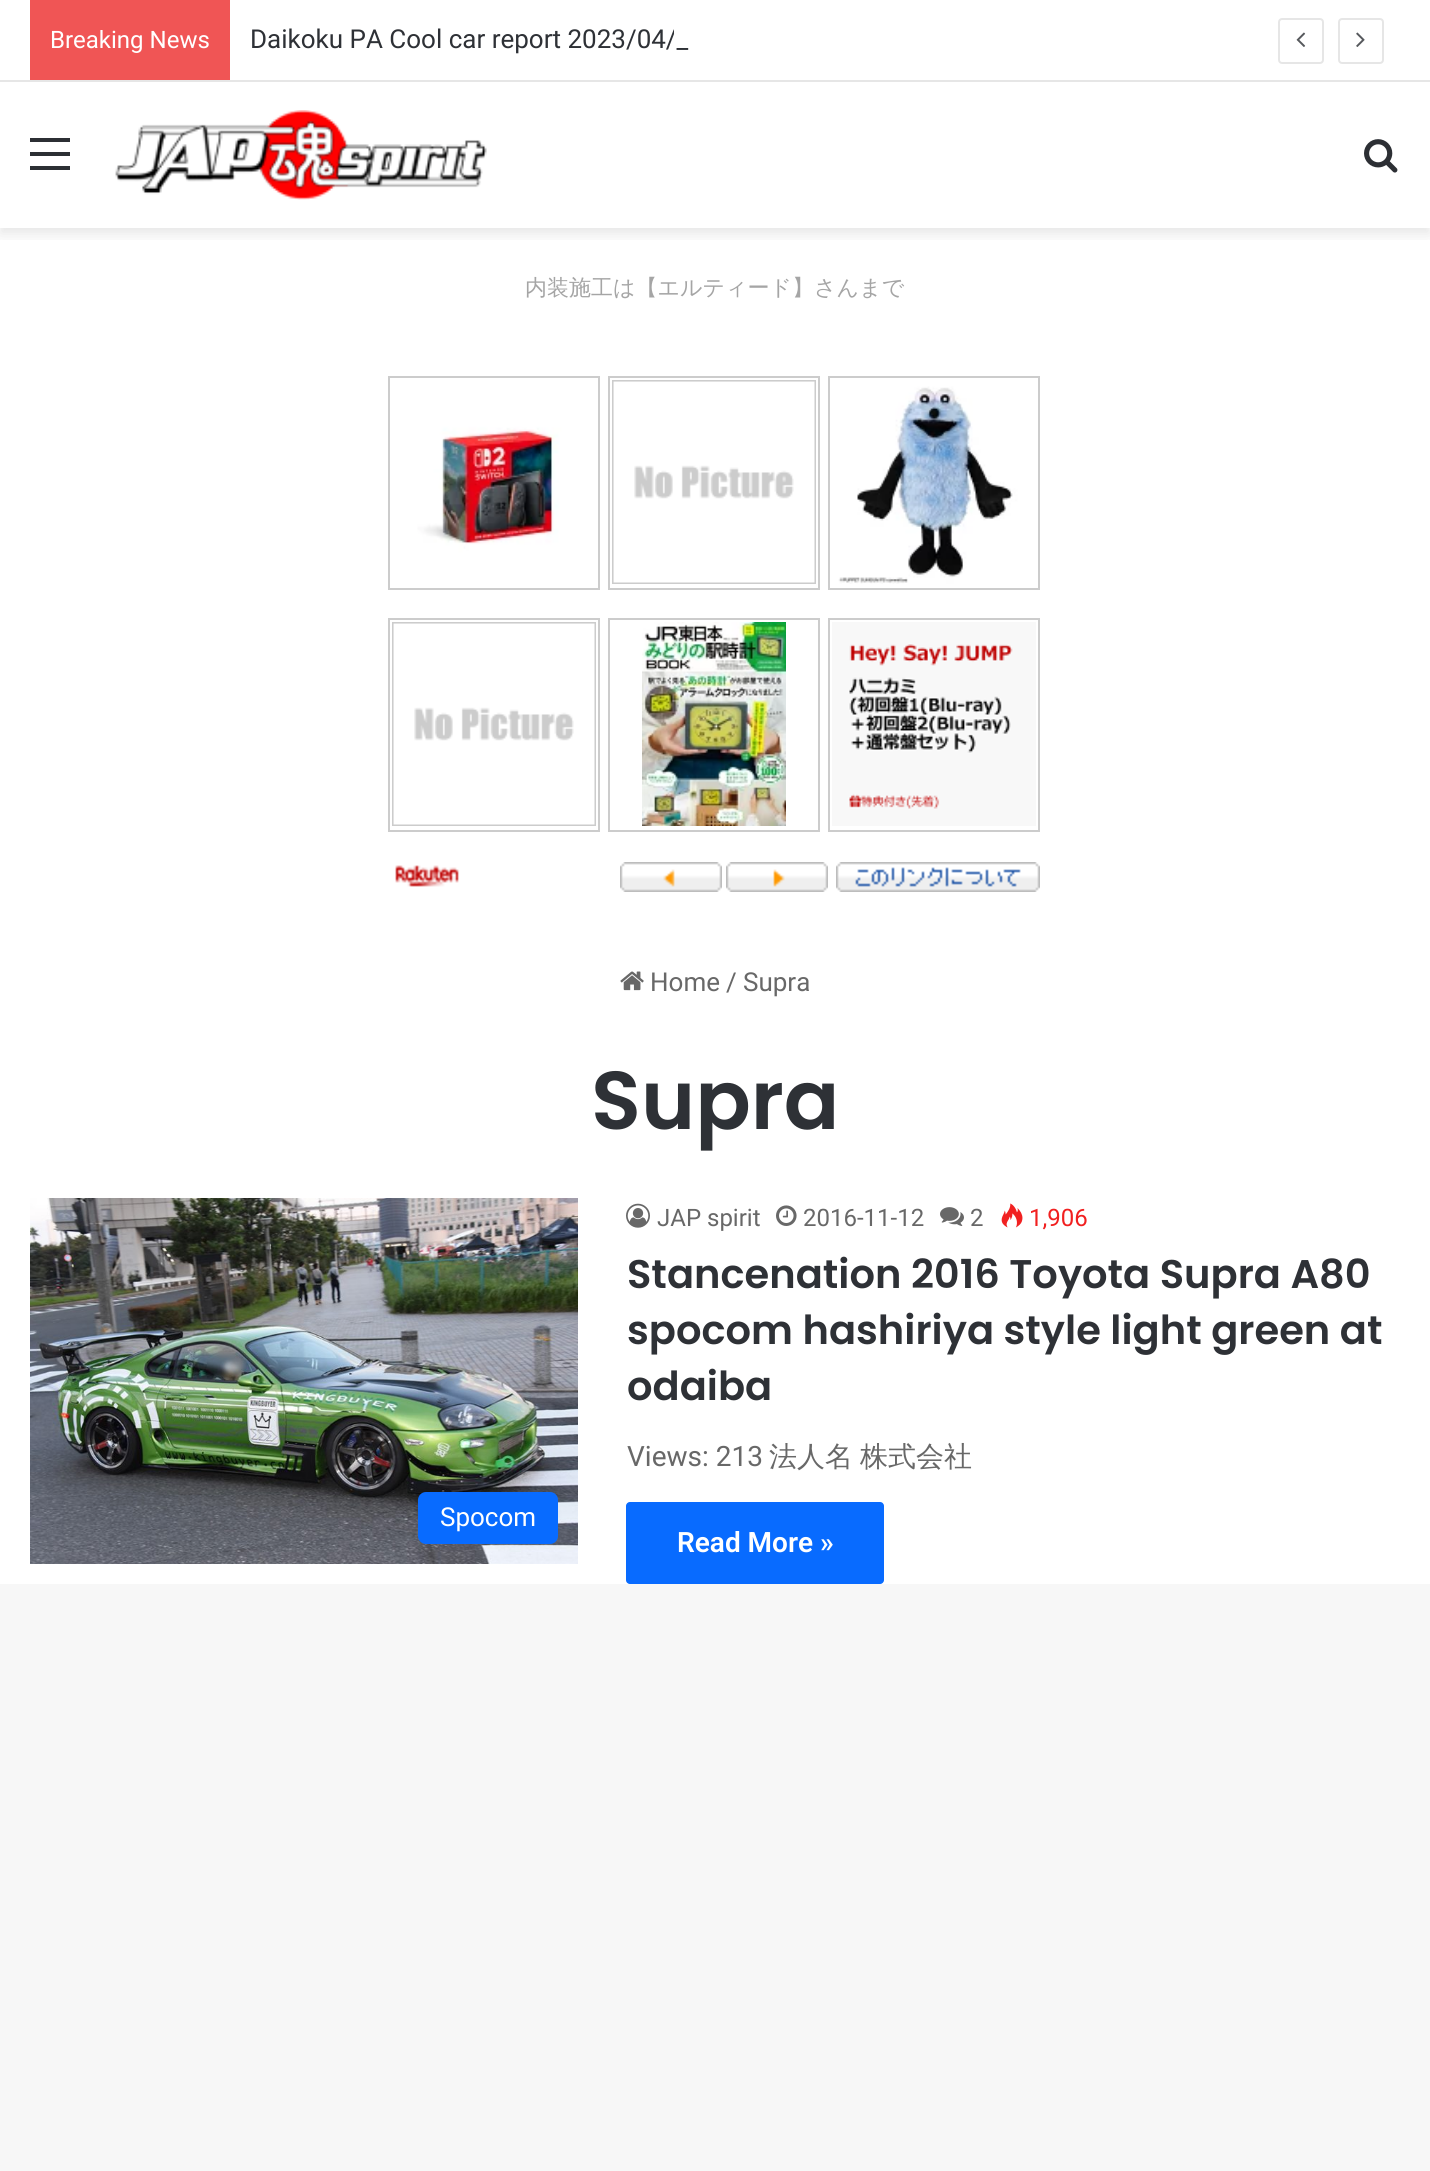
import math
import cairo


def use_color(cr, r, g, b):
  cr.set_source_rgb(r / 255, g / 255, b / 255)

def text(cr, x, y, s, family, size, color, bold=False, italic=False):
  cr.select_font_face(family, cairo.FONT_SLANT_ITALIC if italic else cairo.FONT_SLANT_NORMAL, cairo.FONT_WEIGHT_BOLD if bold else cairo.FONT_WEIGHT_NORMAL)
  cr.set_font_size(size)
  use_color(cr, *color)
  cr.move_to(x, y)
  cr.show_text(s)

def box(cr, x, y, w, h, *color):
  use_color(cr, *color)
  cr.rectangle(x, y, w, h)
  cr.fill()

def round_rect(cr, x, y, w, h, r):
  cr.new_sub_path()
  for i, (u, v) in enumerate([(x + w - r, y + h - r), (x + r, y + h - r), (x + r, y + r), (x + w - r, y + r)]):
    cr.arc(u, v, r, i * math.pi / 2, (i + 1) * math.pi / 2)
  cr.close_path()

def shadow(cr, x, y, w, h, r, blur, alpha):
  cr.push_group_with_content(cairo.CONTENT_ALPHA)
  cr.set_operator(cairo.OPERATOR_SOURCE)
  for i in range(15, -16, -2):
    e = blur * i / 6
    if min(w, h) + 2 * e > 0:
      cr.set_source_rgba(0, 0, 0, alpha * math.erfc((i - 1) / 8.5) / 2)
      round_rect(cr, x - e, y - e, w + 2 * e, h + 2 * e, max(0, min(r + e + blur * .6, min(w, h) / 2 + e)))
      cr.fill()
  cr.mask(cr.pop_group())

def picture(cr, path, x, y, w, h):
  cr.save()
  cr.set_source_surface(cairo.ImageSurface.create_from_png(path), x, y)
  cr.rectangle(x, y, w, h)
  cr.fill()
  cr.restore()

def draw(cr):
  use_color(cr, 247, 247, 247)
  cr.paint()
  box(cr, 0, 82, 1430, 1502, 255, 255, 255)
  cr.save()
  cr.rectangle(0, 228, 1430, 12)
  cr.clip()
  use_color(cr, 0, 0, 0)
  shadow(cr, 0, 88, 1430, 146, 0, 7, 0.1)
  cr.restore()
  box(cr, 0, 0, 1430, 80, 255, 255, 255)
  box(cr, 0, 80, 1430, 2, 230, 230, 230)
  box(cr, 30, 0, 200, 80, 240, 85, 85)
  round_rect(cr, 1279, 19, 44, 44, 3)
  use_color(cr, 230, 230, 230)
  cr.stroke()
  picture(cr, "img_01.png", 1296, 32, 10, 15)
  round_rect(cr, 1339, 19, 44, 44, 3)
  cr.stroke()
  picture(cr, "img_02.png", 1356, 32, 9, 15)
  box(cr, 30, 152, 40, 4, 44, 47, 52)
  box(cr, 30, 138, 40, 4, 44, 47, 52)
  box(cr, 30, 166, 40, 4, 44, 47, 52)
  picture(cr, "img_03.png", 115, 110, 372, 90)
  picture(cr, "img_04.png", 1364, 139, 34, 34)
  picture(cr, "img_05.png", 388, 376, 652, 516)
  picture(cr, "img_06.png", 620, 971, 24, 20)
  picture(cr, "img_07.png", 30, 1198, 548, 366)
  use_color(cr, 8, 107, 255)
  round_rect(cr, 418, 1492, 140, 52, 8)
  cr.fill()
  picture(cr, "img_08.png", 626, 1203, 24, 25)
  picture(cr, "img_09.png", 776, 1205, 21, 21)
  picture(cr, "img_10.png", 940, 1207, 24, 19)
  picture(cr, "img_11.png", 1001, 1203, 22, 25)
  round_rect(cr, 626, 1502, 258, 82, 4)
  cr.fill()
  text(cr, 50, 48, "Breaking News", "Roboto", 24, (255, 255, 255))
  text(cr, 250, 48, "Daikoku PA Cool car report 2023/04/_", "Roboto", 26, (46, 49, 54))
  box(cr, 674, 29, 2, 5, 255, 255, 255)
  text(cr, 525, 295, "内装施工は【エルティード】さんまで", "WenQuanYi Zen Hei Medium", 22, (165, 165, 165))
  text(cr, 650, 991, "Home", "Roboto", 26, (104, 104, 104))
  text(cr, 726, 991, "/", "Roboto", 26, (104, 104, 104))
  text(cr, 743, 991, "Supra", "Roboto", 26, (104, 104, 104))
  text(cr, 591, 1129, "Supra", "Poppins SemiBold", 82, (46, 49, 54))
  text(cr, 440, 1526, "Spocom", "Roboto", 26, (255, 255, 255))
  text(cr, 657, 1226, "JAP spirit", "Roboto", 24, (104, 104, 104))
  text(cr, 803, 1226, "2016-11-12", "Roboto", 24, (104, 104, 104))
  text(cr, 970, 1226, "2", "Roboto", 24, (104, 104, 104))
  text(cr, 1029, 1226, "1,906", "Roboto", 24, (241, 32, 32))
  text(cr, 627, 1288, "Stancenation 2016 Toyota Supra A80", "Poppins SemiBold", 40, (46, 49, 54))
  text(cr, 627, 1344, "spocom hashiriya style light green at", "Poppins SemiBold", 40, (46, 49, 54))
  text(cr, 627, 1400, "odaiba", "Poppins SemiBold", 40, (46, 49, 54))
  text(cr, 627, 1466, "Views: 213", "Roboto", 28, (104, 104, 104))
  text(cr, 769, 1466, "法人名", "WenQuanYi Zen Hei Medium", 28, (104, 104, 104))
  text(cr, 860, 1466, "株式会社", "WenQuanYi Zen Hei Medium", 28, (104, 104, 104))
  text(cr, 677, 1552, "Read More »", "Roboto SemiBold", 28, (255, 255, 255))


surface = cairo.ImageSurface(cairo.FORMAT_RGB24, 1430, 2171)
cr = cairo.Context(surface)
options = cairo.FontOptions()
options.set_hint_metrics(cairo.HINT_METRICS_OFF)
options.set_hint_style(cairo.HINT_STYLE_NONE)
cr.set_font_options(options)
cr.set_miter_limit(4)
draw(cr)
surface.write_to_png("out.png")
